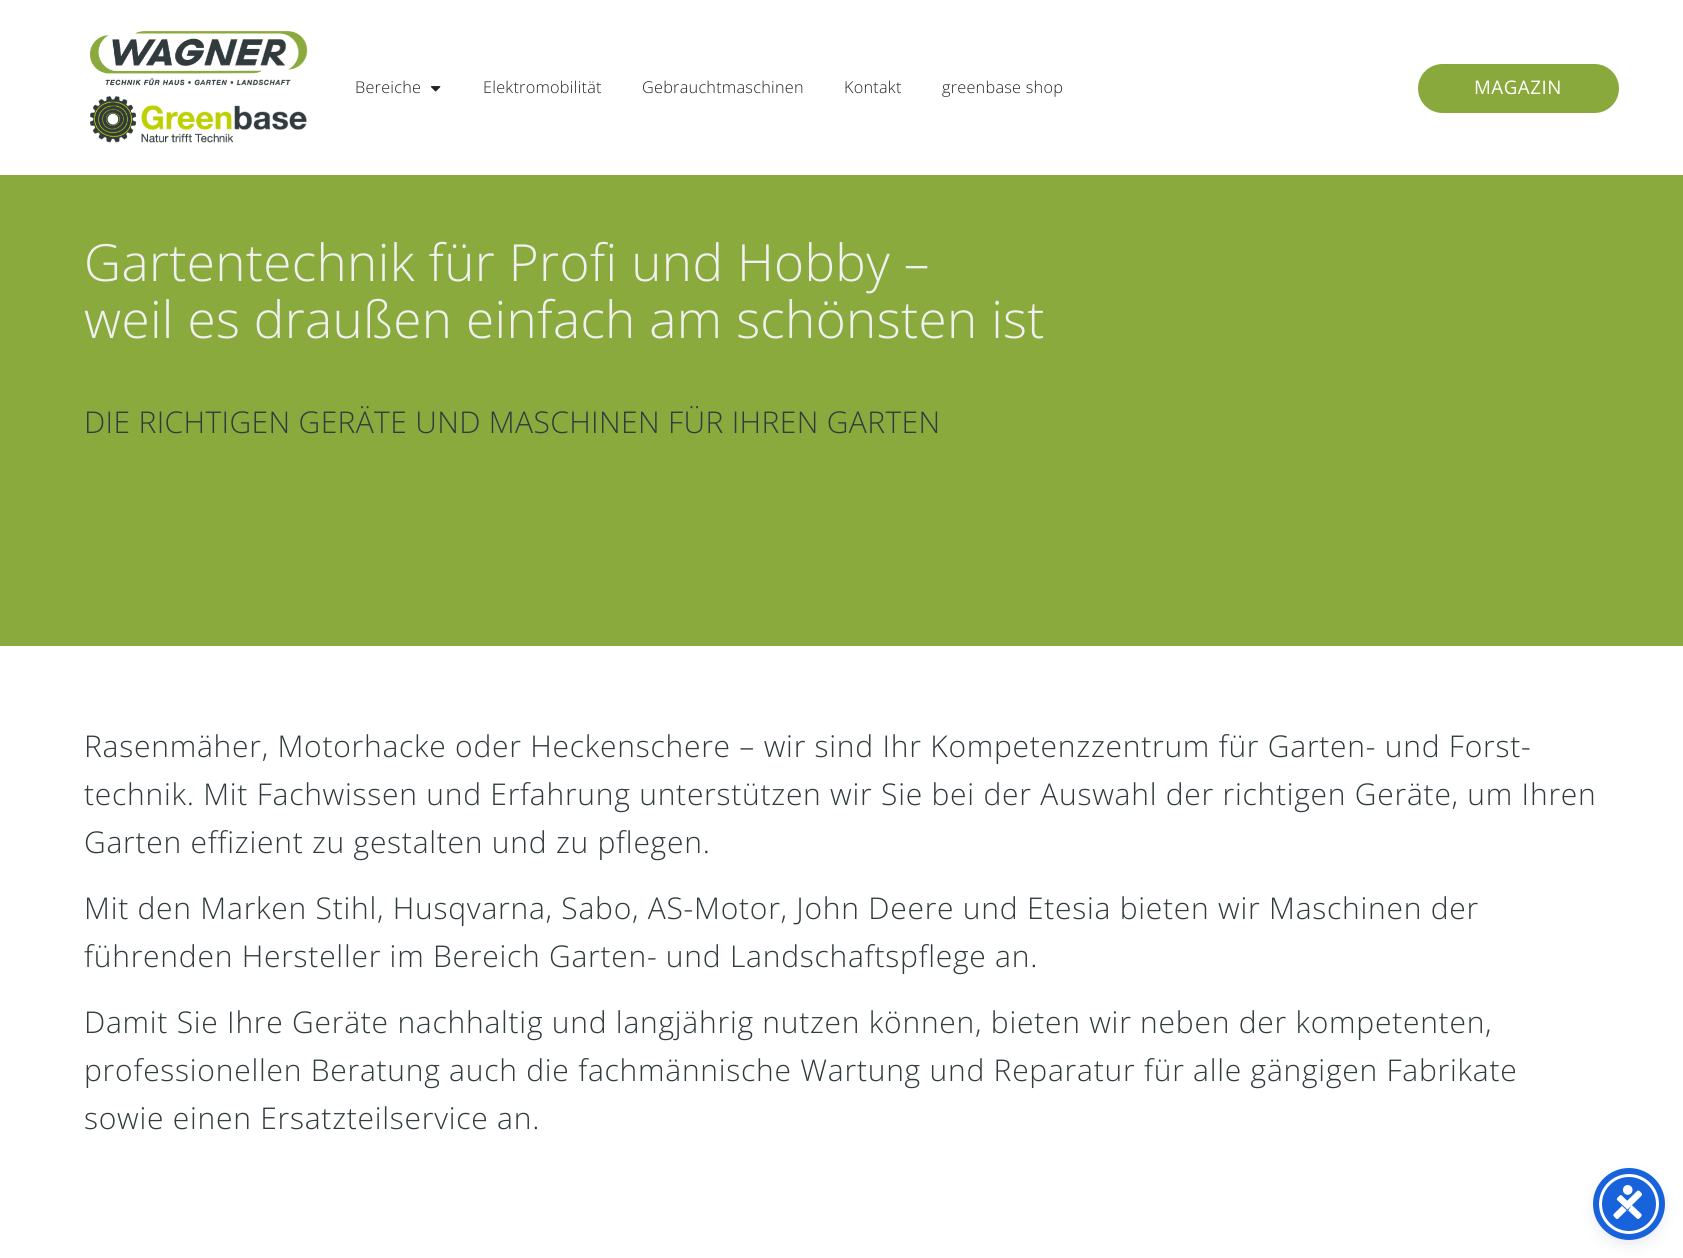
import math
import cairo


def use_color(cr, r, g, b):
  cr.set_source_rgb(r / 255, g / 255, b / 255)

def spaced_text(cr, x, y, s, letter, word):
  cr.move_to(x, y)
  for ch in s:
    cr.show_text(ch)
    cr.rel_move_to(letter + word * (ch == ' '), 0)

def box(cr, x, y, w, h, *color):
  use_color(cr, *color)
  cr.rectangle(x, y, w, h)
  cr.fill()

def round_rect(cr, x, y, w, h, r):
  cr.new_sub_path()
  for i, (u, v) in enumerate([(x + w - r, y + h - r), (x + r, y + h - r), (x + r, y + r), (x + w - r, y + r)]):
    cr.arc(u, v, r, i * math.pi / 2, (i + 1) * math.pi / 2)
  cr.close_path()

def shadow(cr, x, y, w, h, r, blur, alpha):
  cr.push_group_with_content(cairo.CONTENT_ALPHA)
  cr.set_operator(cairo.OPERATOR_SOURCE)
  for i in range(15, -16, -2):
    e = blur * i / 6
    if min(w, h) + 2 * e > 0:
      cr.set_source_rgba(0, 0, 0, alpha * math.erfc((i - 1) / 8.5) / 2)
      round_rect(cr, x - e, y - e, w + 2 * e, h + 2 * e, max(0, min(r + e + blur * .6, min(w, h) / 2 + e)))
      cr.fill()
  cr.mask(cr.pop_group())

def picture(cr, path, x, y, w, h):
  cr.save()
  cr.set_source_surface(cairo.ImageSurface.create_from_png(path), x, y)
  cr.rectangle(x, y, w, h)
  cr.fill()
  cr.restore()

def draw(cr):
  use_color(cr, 255, 255, 255)
  cr.paint()
  picture(cr, "img_01.png", 90, 31, 218, 112)
  picture(cr, "img_02.png", 430, 86, 11, 6)
  use_color(cr, 138, 169, 61)
  round_rect(cr, 1418, 64, 201, 49, 24.5)
  cr.fill()
  box(cr, 0, 175, 1683, 471, 138, 170, 62)
  use_color(cr, 93, 100, 148)
  shadow(cr, 1599, 1176, 60, 60, 30, 2.5, 0.2)
  use_color(cr, 37, 44, 97)
  shadow(cr, 1599, 1180, 60, 60, 30, 9.5, 0.15)
  use_color(cr, 24, 99, 220)
  cr.arc(1629, 1204, 28.5, 0, 2 * math.pi)
  cr.fill_preserve()
  use_color(cr, 255, 255, 255)
  cr.set_line_width(3)
  cr.stroke()
  cr.arc(1629, 1204, 33, 0, 2 * math.pi)
  use_color(cr, 24, 99, 220)
  cr.set_line_width(6)
  cr.stroke()
  picture(cr, "img_03.png", 1613, 1185, 29, 34)
  cr.select_font_face("Open Sans Light")
  cr.set_font_size(16.25)
  use_color(cr, 31, 33, 36)
  spaced_text(cr, 355, 93, "Bereiche", 0.25, 0)
  spaced_text(cr, 483, 93, "Elektromobilität", 0.25, 0)
  spaced_text(cr, 642, 93, "Gebrauchtmaschinen", 0.25, 0)
  spaced_text(cr, 844, 93, "Kontakt", 0.25, 0)
  spaced_text(cr, 942, 93, "greenbase shop", 0.25, 0)
  cr.select_font_face("Open Sans")
  cr.set_font_size(18.75)
  use_color(cr, 255, 255, 255)
  spaced_text(cr, 1474, 94, "MAGAZIN", 0.5, 0)
  cr.select_font_face("Open Sans Light")
  cr.set_font_size(51.25)
  use_color(cr, 240, 240, 240)
  spaced_text(cr, 84, 281, "Gartentechnik für Profi und Hobby –", 0.35, 0)
  spaced_text(cr, 84, 338, "weil es draußen einfach am schönsten ist", 0.35, 0)
  cr.set_font_size(30)
  use_color(cr, 49, 59, 62)
  spaced_text(cr, 84, 433, "DIE RICHTIGEN GERÄTE UND MASCHINEN FÜR IHREN GARTEN", 0.35, 0)
  spaced_text(cr, 84, 757, "Rasenmäher, Motorhacke oder Heckenschere – wir sind Ihr Kompetenzzentrum für Garten- und Forst-", 0.75, 0)
  spaced_text(cr, 84, 805, "technik. Mit Fachwissen und Erfahrung unterstützen wir Sie bei der Auswahl der richtigen Geräte, um Ihren", 0.75, 0)
  spaced_text(cr, 84, 853, "Garten effizient zu gestalten und zu pflegen.", 0.75, 0)
  spaced_text(cr, 84, 919, "Mit den Marken Stihl, Husqvarna, Sabo, AS-Motor, John Deere und Etesia bieten wir Maschinen der", 0.75, 0)
  spaced_text(cr, 84, 967, "führenden Hersteller im Bereich Garten- und Landschaftspflege an.", 0.75, 0)
  spaced_text(cr, 84, 1033, "Damit Sie Ihre Geräte nachhaltig und langjährig nutzen können, bieten wir neben der kompetenten,", 0.75, 0)
  spaced_text(cr, 84, 1081, "professionellen Beratung auch die fachmännische Wartung und Reparatur für alle gängigen Fabrikate", 0.75, 0)
  spaced_text(cr, 84, 1129, "sowie einen Ersatzteilservice an.", 0.75, 0)


surface = cairo.ImageSurface(cairo.FORMAT_RGB24, 1683, 1258)
cr = cairo.Context(surface)
options = cairo.FontOptions()
options.set_hint_metrics(cairo.HINT_METRICS_OFF)
options.set_hint_style(cairo.HINT_STYLE_NONE)
cr.set_font_options(options)
cr.set_miter_limit(4)
draw(cr)
surface.write_to_png("out.png")
